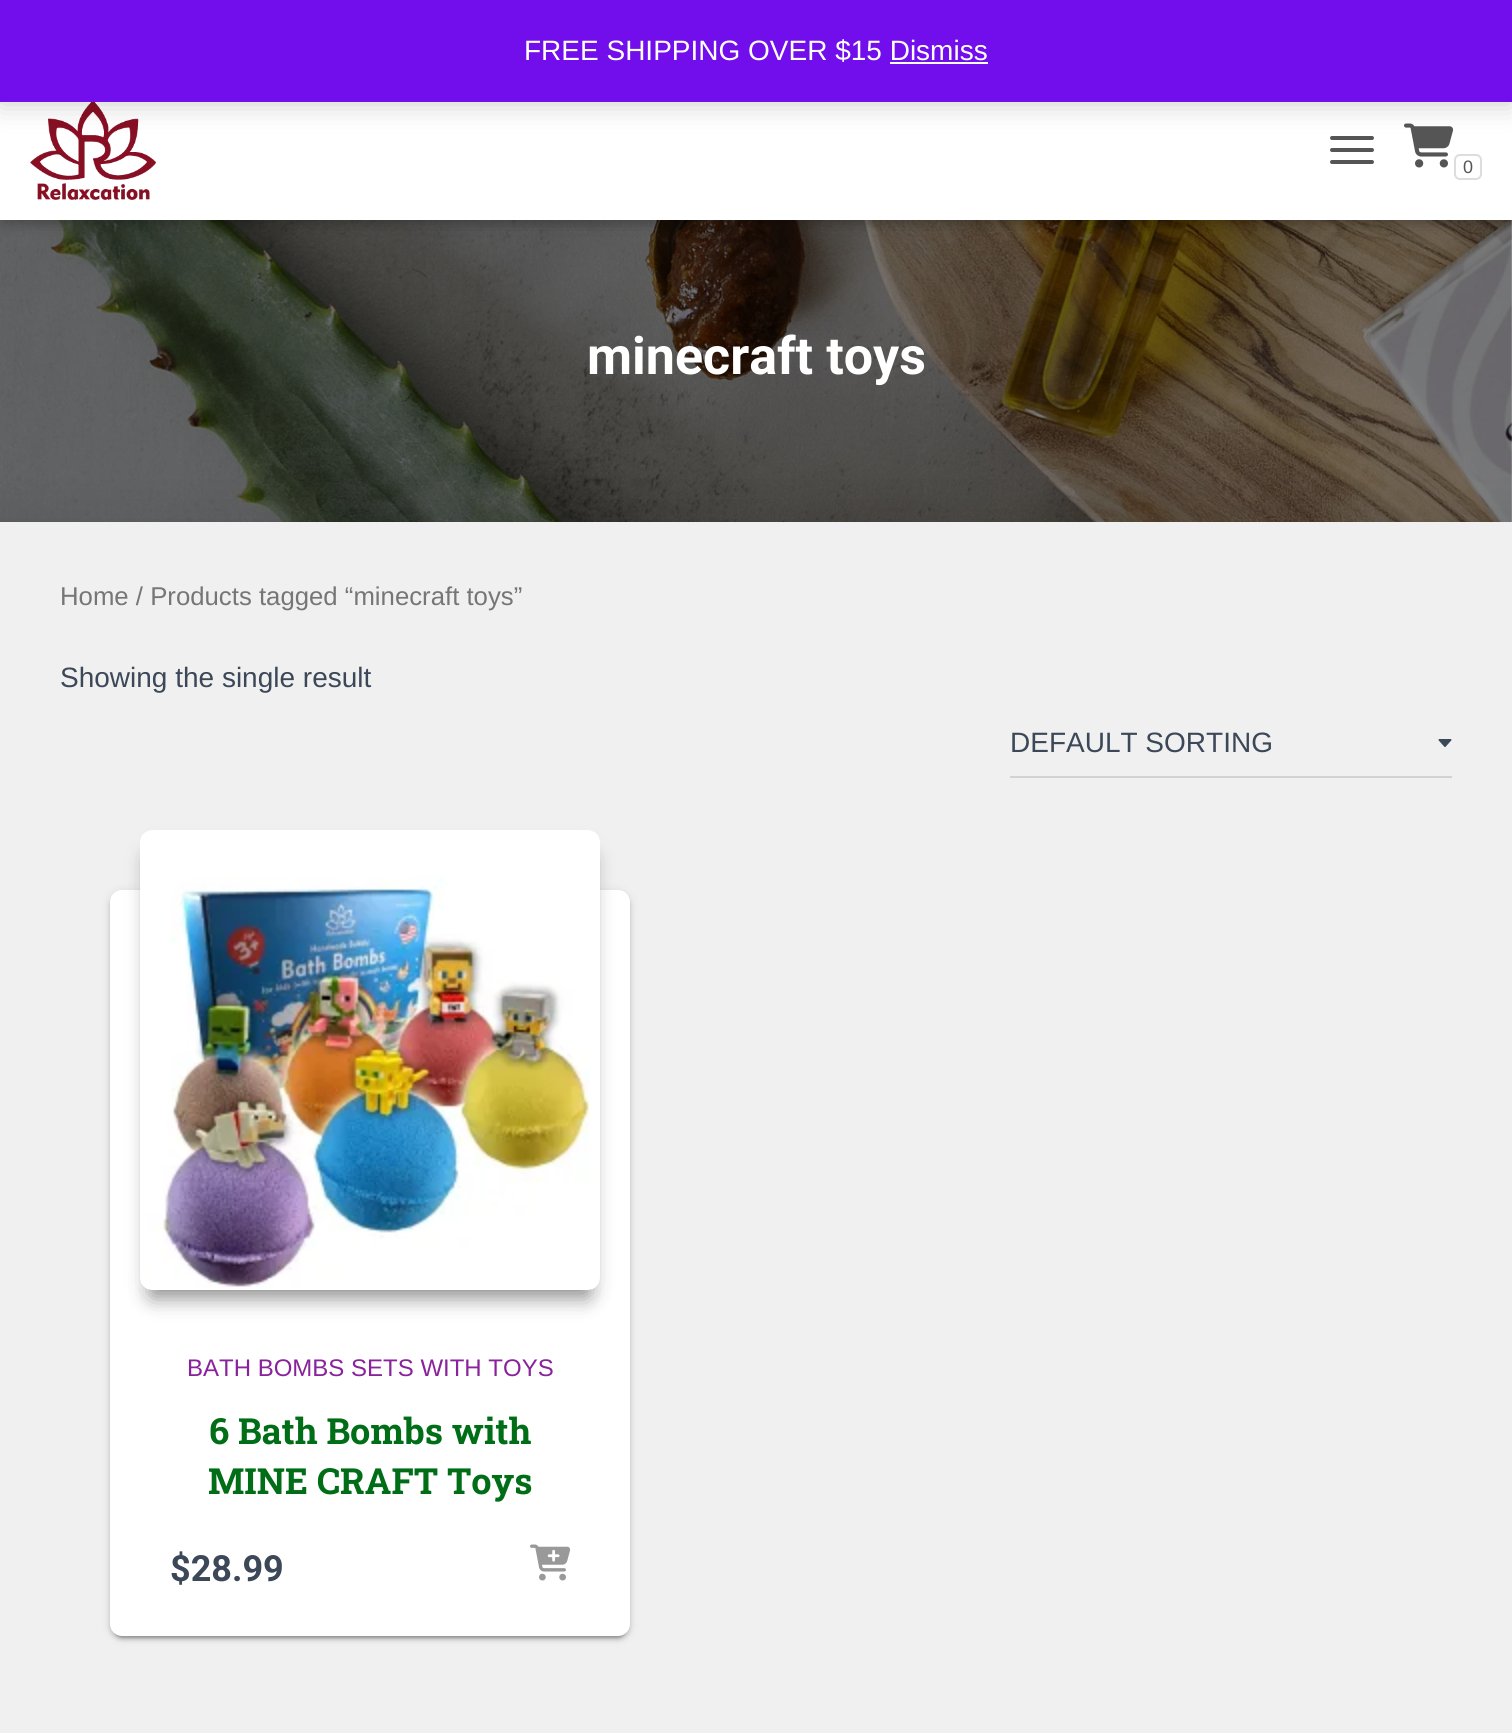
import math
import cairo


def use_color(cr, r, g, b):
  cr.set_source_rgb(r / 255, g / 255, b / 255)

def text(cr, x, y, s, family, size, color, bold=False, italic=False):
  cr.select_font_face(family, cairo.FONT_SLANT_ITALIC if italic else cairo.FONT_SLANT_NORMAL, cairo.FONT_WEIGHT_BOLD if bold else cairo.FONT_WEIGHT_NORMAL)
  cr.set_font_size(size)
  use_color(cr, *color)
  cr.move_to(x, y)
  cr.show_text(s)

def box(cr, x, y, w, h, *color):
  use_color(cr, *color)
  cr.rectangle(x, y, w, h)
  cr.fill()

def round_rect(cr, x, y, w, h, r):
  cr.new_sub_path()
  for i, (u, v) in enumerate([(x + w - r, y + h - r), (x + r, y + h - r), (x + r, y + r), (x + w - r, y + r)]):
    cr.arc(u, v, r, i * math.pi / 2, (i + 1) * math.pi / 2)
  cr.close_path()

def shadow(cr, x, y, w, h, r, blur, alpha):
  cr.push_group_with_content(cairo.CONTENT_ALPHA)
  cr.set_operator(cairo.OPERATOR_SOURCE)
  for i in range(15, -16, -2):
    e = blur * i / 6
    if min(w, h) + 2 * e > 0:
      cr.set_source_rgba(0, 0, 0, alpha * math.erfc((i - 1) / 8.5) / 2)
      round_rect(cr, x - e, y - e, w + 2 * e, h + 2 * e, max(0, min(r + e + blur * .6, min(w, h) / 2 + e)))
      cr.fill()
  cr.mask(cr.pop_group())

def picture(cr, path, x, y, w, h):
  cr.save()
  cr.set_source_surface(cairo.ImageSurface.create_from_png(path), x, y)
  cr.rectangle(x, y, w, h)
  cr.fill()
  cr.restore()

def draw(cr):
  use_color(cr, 255, 255, 255)
  cr.paint()
  picture(cr, "img_03.png", 0, 220, 1512, 302)
  use_color(cr, 0, 0, 0)
  shadow(cr, 4, 92, 1504, 132, 0, 5, 0.1)
  shadow(cr, 0, 82, 1512, 140, 0, 10, 0.12)
  shadow(cr, 12, 94, 1488, 116, 0, 10, 0.42)
  box(cr, 0, 102, 1512, 118, 255, 255, 255)
  picture(cr, "img_01.png", 30, 102, 126, 98)
  use_color(cr, 85, 85, 85)
  round_rect(cr, 1330, 136, 44, 4, 2)
  cr.fill()
  picture(cr, "img_02.png", 1404, 123, 50, 45)
  use_color(cr, 0, 0, 0)
  shadow(cr, 0, 2, 1512, 102, 0, 14, 0.2)
  box(cr, 0, 0, 1512, 102, 114, 14, 236)
  box(cr, 890, 62, 98, 2, 252, 251, 254)
  use_color(cr, 85, 85, 85)
  round_rect(cr, 1330, 148, 44, 4, 2)
  cr.fill()
  round_rect(cr, 1330, 160, 44, 4, 2)
  cr.fill()
  round_rect(cr, 1455, 155, 26, 24, 5)
  use_color(cr, 221, 221, 221)
  cr.stroke()
  use_color(cr, 0, 0, 0)
  shadow(cr, -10, 524, 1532, 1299, 0, 30, 0.12)
  box(cr, 0, 522, 1512, 1211, 240, 240, 240)
  box(cr, 1010, 776, 442, 2, 210, 210, 210)
  picture(cr, "img_04.png", 1438, 739, 14, 8)
  use_color(cr, 0, 0, 0)
  shadow(cr, 110, 892, 520, 746, 12, 5, 0.12)
  shadow(cr, 114, 900, 512, 738, 8, 1, 0.2)
  shadow(cr, 110, 894, 520, 746, 12, 2, 0.14)
  use_color(cr, 255, 255, 255)
  round_rect(cr, 110, 890, 520, 746, 12)
  cr.fill()
  use_color(cr, 0, 0, 0)
  shadow(cr, 150, 860, 440, 440, 2, 10, 0.2)
  shadow(cr, 150, 856, 440, 440, 2, 10, 0.2)
  shadow(cr, 156, 856, 428, 428, 0, 15, 0.24)
  picture(cr, "img_05.png", 140, 830, 460, 460)
  picture(cr, "img_06.png", 530, 1544, 41, 37)
  text(cr, 524, 60, "FREE SHIPPING OVER $15 Dismiss", "Liberation Sans", 28, (255, 255, 255))
  text(cr, 1463, 173, "0", "Liberation Sans", 18, (85, 85, 85))
  text(cr, 587, 374, "minecraft toys", "Roboto", 52, (255, 255, 255), bold=True)
  text(cr, 60, 605, "Home / Products tagged “minecraft toys”", "Liberation Sans", 25.75, (118, 118, 118))
  text(cr, 60, 687, "Showing the single result", "Liberation Sans", 28, (60, 72, 88))
  text(cr, 1010, 752, "DEFAULT SORTING", "Liberation Sans", 28, (60, 72, 88))
  text(cr, 187, 1376, "BATH BOMBS SETS WITH TOYS", "Liberation Sans", 24, (137, 34, 155))
  text(cr, 209, 1444, "6 Bath Bombs with", "Roboto Slab", 36, (0, 109, 23), bold=True)
  text(cr, 208, 1494, "MINE CRAFT Toys", "Roboto Slab", 36, (0, 109, 23), bold=True)
  text(cr, 170, 1581, "$28.99", "Roboto", 36, (60, 72, 88), bold=True)


surface = cairo.ImageSurface(cairo.FORMAT_RGB24, 1512, 1733)
cr = cairo.Context(surface)
options = cairo.FontOptions()
options.set_hint_metrics(cairo.HINT_METRICS_OFF)
options.set_hint_style(cairo.HINT_STYLE_NONE)
cr.set_font_options(options)
cr.set_miter_limit(4)
draw(cr)
surface.write_to_png("out.png")
